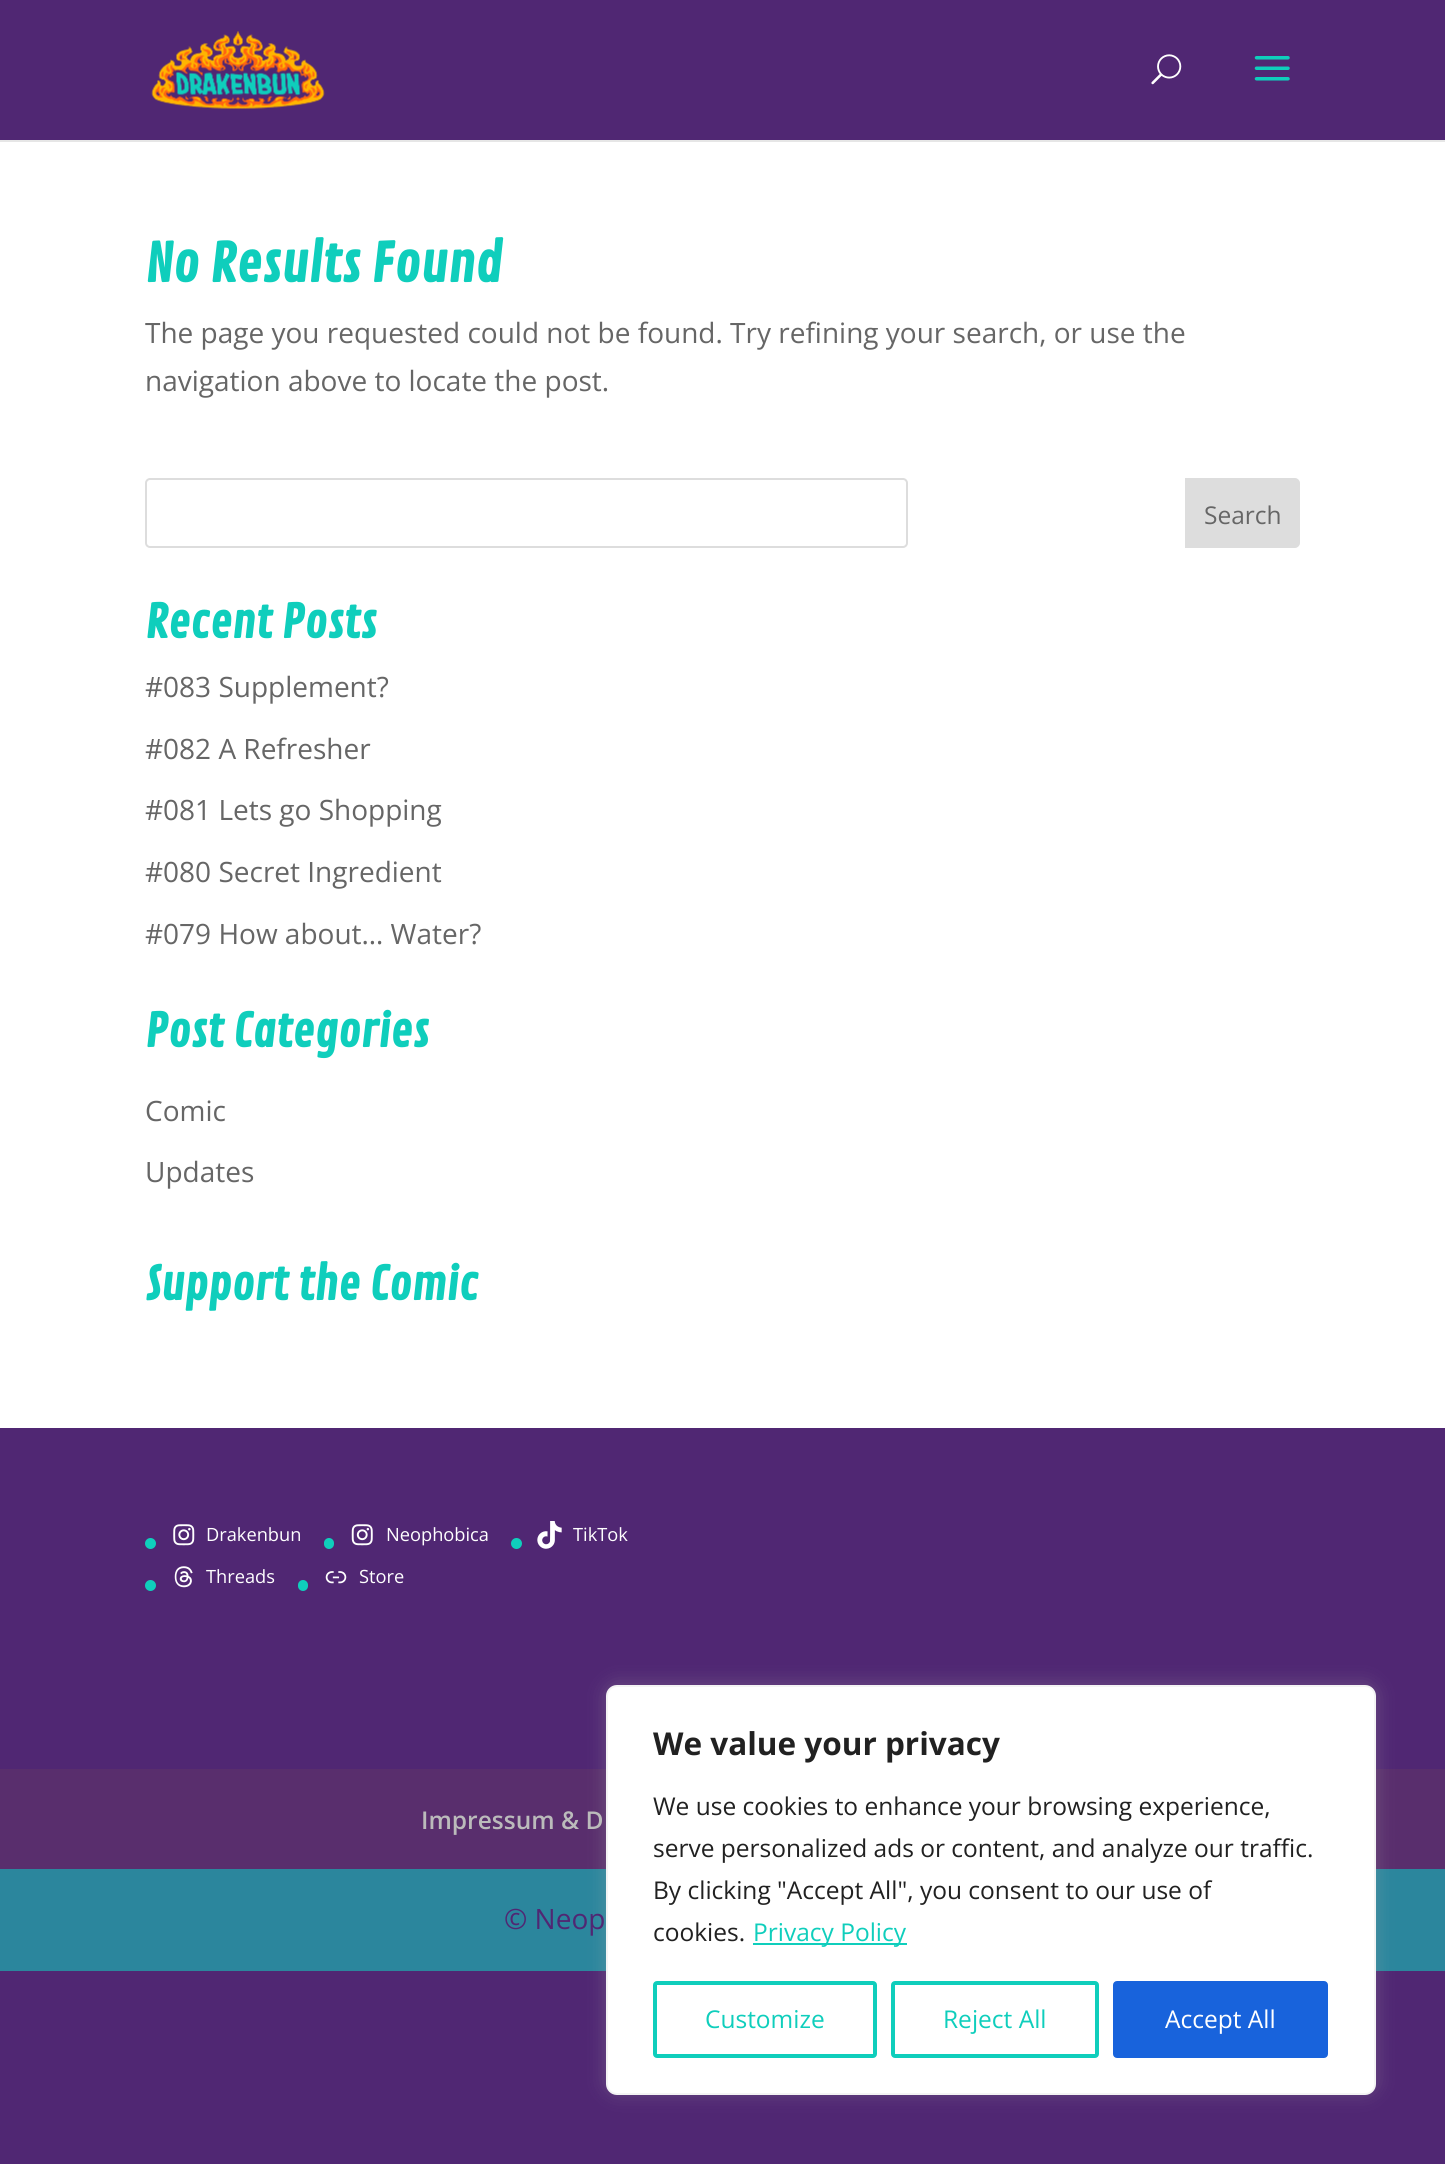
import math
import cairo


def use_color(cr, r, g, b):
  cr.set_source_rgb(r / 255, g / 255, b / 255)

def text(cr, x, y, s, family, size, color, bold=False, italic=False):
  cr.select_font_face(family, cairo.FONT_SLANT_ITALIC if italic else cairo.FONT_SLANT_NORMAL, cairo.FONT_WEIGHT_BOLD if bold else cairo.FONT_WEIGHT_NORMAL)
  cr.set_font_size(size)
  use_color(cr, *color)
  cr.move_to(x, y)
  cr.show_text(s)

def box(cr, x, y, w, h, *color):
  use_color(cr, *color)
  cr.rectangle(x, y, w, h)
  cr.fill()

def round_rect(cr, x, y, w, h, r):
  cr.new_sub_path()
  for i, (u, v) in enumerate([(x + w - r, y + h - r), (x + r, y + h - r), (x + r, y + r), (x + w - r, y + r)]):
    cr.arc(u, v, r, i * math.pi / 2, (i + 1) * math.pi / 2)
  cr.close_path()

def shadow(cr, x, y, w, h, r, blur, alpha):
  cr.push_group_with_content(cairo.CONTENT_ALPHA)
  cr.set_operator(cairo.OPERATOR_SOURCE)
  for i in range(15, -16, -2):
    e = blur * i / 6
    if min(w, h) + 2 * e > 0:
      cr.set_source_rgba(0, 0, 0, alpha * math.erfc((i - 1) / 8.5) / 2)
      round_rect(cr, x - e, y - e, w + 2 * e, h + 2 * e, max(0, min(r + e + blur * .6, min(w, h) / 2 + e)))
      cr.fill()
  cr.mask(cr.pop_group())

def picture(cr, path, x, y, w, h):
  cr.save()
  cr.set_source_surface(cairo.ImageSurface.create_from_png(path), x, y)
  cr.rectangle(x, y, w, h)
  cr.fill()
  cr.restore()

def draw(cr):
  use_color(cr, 80, 39, 115)
  cr.paint()
  use_color(cr, 230, 230, 230)
  cr.new_path()
  cr.move_to(0, 140)
  cr.line_to(0, 142)
  cr.line_to(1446, 142)
  cr.line_to(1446, 2)
  cr.line_to(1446, 140)
  cr.close_path()
  cr.fill()
  picture(cr, "img_01.png", 151, 31, 174, 78)
  picture(cr, "img_02.png", 1151, 54, 31, 31)
  picture(cr, "img_03.png", 1254, 56, 36, 25)
  box(cr, 0, 142, 1445, 1286, 255, 255, 255)
  round_rect(cr, 146, 479, 761, 68, 4)
  use_color(cr, 221, 221, 221)
  cr.stroke()
  cr.new_path()
  cr.move_to(1186, 479)
  cr.line_to(1295, 479)
  cr.curve_to(1297, 479, 1299, 481, 1299, 483)
  cr.line_to(1299, 543)
  cr.curve_to(1299, 545, 1297, 547, 1295, 547)
  cr.line_to(1186, 547)
  cr.close_path()
  cr.fill_preserve()
  cr.stroke()
  picture(cr, "img_04.png", 173, 1524, 22, 22)
  use_color(cr, 15, 206, 188)
  cr.arc(150.5, 1543.5, 5.5, 0, 2 * math.pi)
  cr.fill()
  round_rect(cr, 324, 1538, 10, 11, 5)
  cr.fill()
  picture(cr, "img_05.png", 351, 1524, 22, 22)
  picture(cr, "img_06.png", 537, 1521, 25, 28)
  cr.arc(516.5, 1543.5, 5.5, 0, 2 * math.pi)
  cr.fill()
  picture(cr, "img_07.png", 174, 1566, 19, 22)
  cr.arc(150.5, 1585.5, 5.5, 0, 2 * math.pi)
  cr.fill()
  picture(cr, "img_08.png", 325, 1571, 22, 13)
  round_rect(cr, 298, 1580, 10, 11, 5)
  cr.fill()
  box(cr, 0, 1769, 1445, 100, 89, 46, 109)
  box(cr, 0, 1869, 1445, 102, 43, 134, 157)
  use_color(cr, 172, 171, 171)
  shadow(cr, 606, 1684, 770, 409, 11, 9, 0.3)
  use_color(cr, 255, 255, 255)
  round_rect(cr, 607, 1686, 768, 408, 10)
  cr.fill_preserve()
  use_color(cr, 244, 244, 244)
  cr.stroke()
  box(cr, 753, 1943, 154, 2, 15, 206, 188)
  round_rect(cr, 655, 1983, 220, 73, 2)
  cr.set_line_width(4)
  cr.stroke()
  round_rect(cr, 893, 1983, 204, 73, 2)
  cr.stroke()
  use_color(cr, 24, 99, 220)
  round_rect(cr, 1115, 1983, 211, 73, 2)
  cr.fill_preserve()
  cr.stroke()
  text(cr, 145, 282, "No Results Found", "Contrail One", 52.5, (15, 206, 188), bold=True)
  text(cr, 145, 343, "The page you requested could not be found. Try refining your search, or use the", "Open Sans", 28, (102, 102, 102))
  text(cr, 145, 391, "navigation above to locate the post.", "Open Sans", 28, (102, 102, 102))
  text(cr, 1204, 524, "Search", "Open Sans", 24.5, (102, 102, 102))
  text(cr, 145, 638, "Recent Posts", "Contrail One", 45.5, (15, 206, 188), bold=True)
  text(cr, 145, 697, "#083 Supplement?", "Open Sans", 28, (102, 102, 102))
  text(cr, 145, 759, "#082 A Refresher", "Open Sans", 28, (102, 102, 102))
  text(cr, 145, 820, "#081 Lets go Shopping", "Open Sans", 28, (102, 102, 102))
  text(cr, 145, 882, "#080 Secret Ingredient", "Open Sans", 28, (102, 102, 102))
  text(cr, 145, 944, "#079 How about… Water?", "Open Sans", 28, (102, 102, 102))
  text(cr, 145, 1047, "Post Categories", "Contrail One", 45.5, (15, 206, 188), bold=True)
  text(cr, 145, 1121, "Comic", "Open Sans", 28, (102, 102, 102))
  text(cr, 145, 1182, "Updates", "Open Sans", 28, (102, 102, 102))
  text(cr, 145, 1300, "Support the Comic", "Contrail One", 45.5, (15, 206, 188), bold=True)
  text(cr, 206, 1541, "Drakenbun", "Open Sans", 18.25, (255, 255, 255))
  text(cr, 386, 1541, "Neophobica", "Open Sans", 18.25, (255, 255, 255))
  text(cr, 573, 1541, "TikTok", "Open Sans", 18.25, (255, 255, 255))
  text(cr, 206, 1583, "Threads", "Open Sans", 18.25, (255, 255, 255))
  text(cr, 359, 1583, "Store", "Open Sans", 18.25, (255, 255, 255))
  text(cr, 421, 1829, "Impressum & D", "Open Sans SemiBold", 24.5, (187, 187, 187))
  text(cr, 504, 1929, "© Neop", "Open Sans", 28, (80, 39, 115))
  text(cr, 653, 1755, "We value your privacy", "Open Sans", 31.5, (33, 33, 33), bold=True)
  text(cr, 653, 1815, "We use cookies to enhance your browsing experience,", "Open Sans", 24.5, (33, 33, 33))
  text(cr, 653, 1857, "serve personalized ads or content, and analyze our traffic.", "Open Sans", 24.5, (33, 33, 33))
  text(cr, 653, 1899, "By clicking \"Accept All\", you consent to our use of", "Open Sans", 24.5, (33, 33, 33))
  text(cr, 653, 1941, "cookies.", "Open Sans", 24.5, (33, 33, 33))
  text(cr, 753, 1941, "Privacy Policy", "Open Sans", 24.5, (15, 206, 188))
  text(cr, 705, 2028, "Customize", "Open Sans", 24.5, (15, 206, 188))
  text(cr, 943, 2028, "Reject All", "Open Sans", 24.5, (15, 206, 188))
  text(cr, 1165, 2028, "Accept All", "Open Sans", 24.5, (255, 255, 255))


surface = cairo.ImageSurface(cairo.FORMAT_RGB24, 1445, 2164)
cr = cairo.Context(surface)
options = cairo.FontOptions()
options.set_hint_metrics(cairo.HINT_METRICS_OFF)
options.set_hint_style(cairo.HINT_STYLE_NONE)
cr.set_font_options(options)
cr.set_miter_limit(4)
draw(cr)
surface.write_to_png("out.png")
